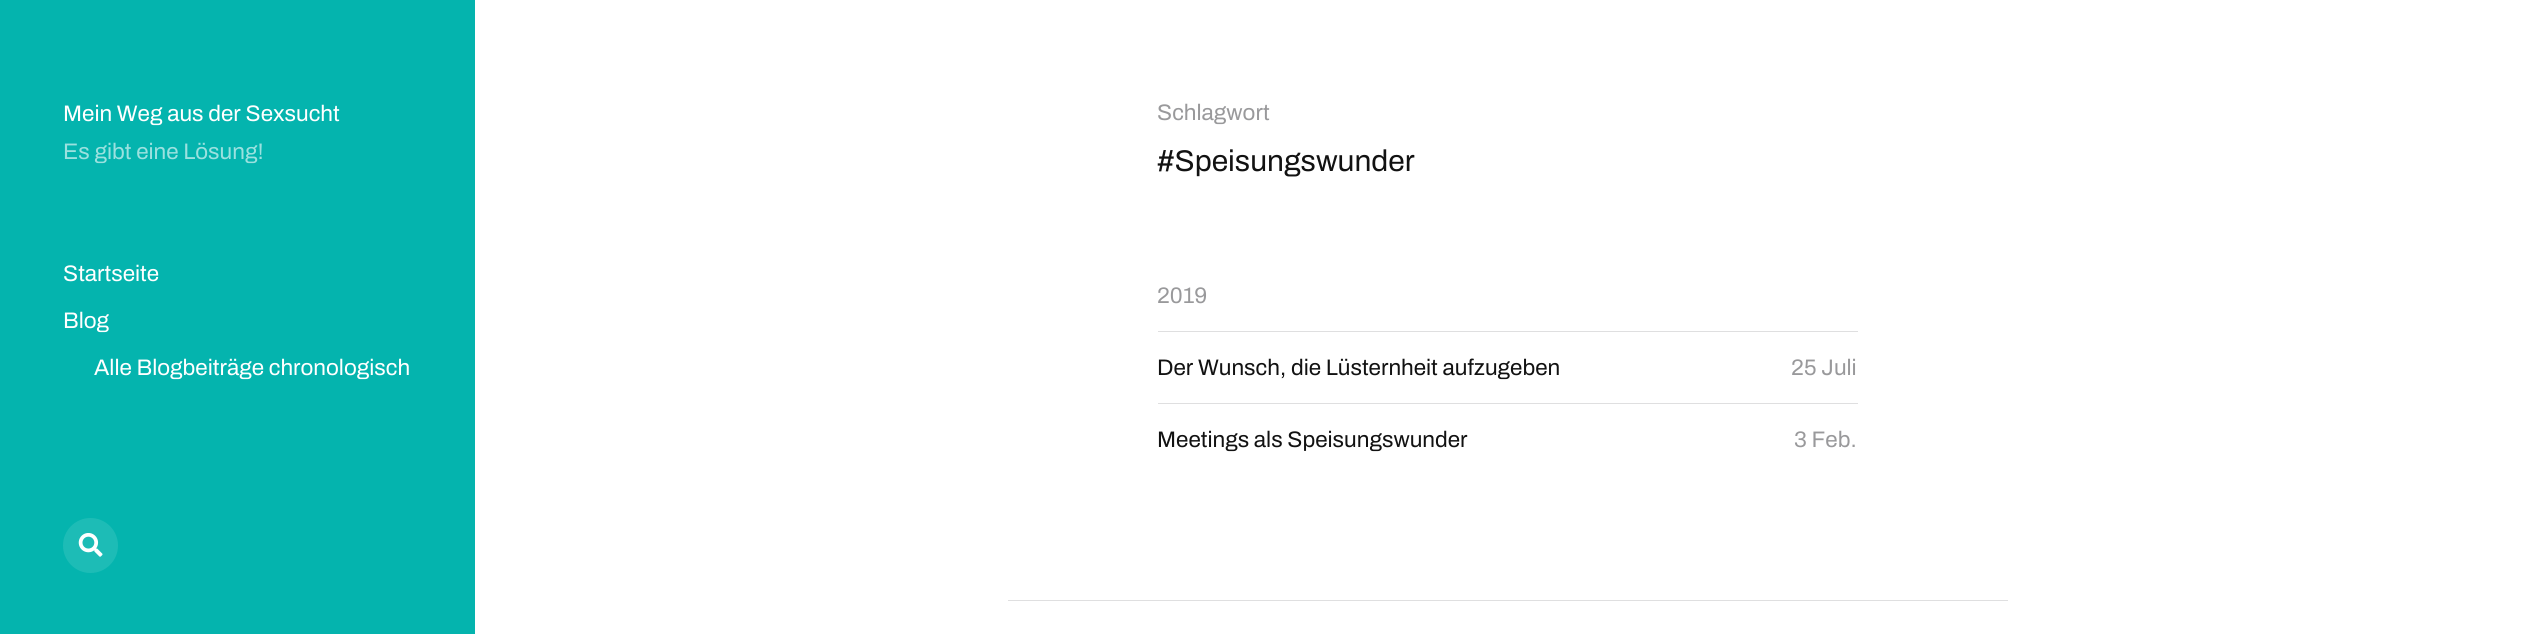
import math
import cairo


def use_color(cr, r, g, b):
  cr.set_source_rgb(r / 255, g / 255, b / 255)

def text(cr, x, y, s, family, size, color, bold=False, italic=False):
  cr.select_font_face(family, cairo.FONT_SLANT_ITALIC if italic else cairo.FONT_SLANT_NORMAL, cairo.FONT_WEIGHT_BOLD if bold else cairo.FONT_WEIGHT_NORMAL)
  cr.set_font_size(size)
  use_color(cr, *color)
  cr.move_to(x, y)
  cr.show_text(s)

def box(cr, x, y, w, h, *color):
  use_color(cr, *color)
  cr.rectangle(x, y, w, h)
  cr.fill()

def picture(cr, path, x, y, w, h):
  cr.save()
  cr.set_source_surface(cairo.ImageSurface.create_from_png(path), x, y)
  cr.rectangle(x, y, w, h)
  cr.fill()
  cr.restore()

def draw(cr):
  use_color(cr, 255, 255, 255)
  cr.paint()
  box(cr, 0, 0, 475, 634, 4, 180, 174)
  use_color(cr, 29, 188, 182)
  cr.arc(90.5, 545.5, 27.5, 0, 2 * math.pi)
  cr.fill()
  picture(cr, "img_01.png", 78, 533, 25, 24)
  box(cr, 1158, 331, 700, 1, 223, 223, 224)
  box(cr, 1158, 403, 700, 1, 223, 223, 224)
  box(cr, 1008, 600, 1000, 1, 223, 223, 224)
  text(cr, 63, 121, "Mein Weg aus der Sexsucht", "Archivo SemiBold", 22.5, (255, 255, 255))
  text(cr, 63, 159, "Es gibt eine Lösung!", "Archivo SemiBold", 22.5, (155, 225, 223))
  text(cr, 63, 281, "Startseite", "Archivo SemiBold", 22.5, (255, 255, 255))
  text(cr, 63, 328, "Blog", "Archivo SemiBold", 22.5, (255, 255, 255))
  text(cr, 94, 375, "Alle Blogbeiträge chronologisch", "Archivo SemiBold", 22.5, (255, 255, 255))
  text(cr, 1157, 120, "Schlagwort", "Archivo SemiBold", 22.5, (153, 153, 155))
  text(cr, 1157, 171, "#Speisungswunder", "Archivo SemiBold", 30, (18, 18, 18))
  text(cr, 1157, 303, "2019", "Archivo SemiBold", 22.5, (153, 153, 155))
  text(cr, 1157, 375, "Der Wunsch, die Lüsternheit aufzugeben", "Archivo SemiBold", 22.5, (18, 18, 18))
  text(cr, 1791, 375, "25 Juli", "Archivo SemiBold", 22.5, (153, 153, 155))
  text(cr, 1157, 447, "Meetings als Speisungswunder", "Archivo SemiBold", 22.5, (18, 18, 18))
  text(cr, 1794, 447, "3 Feb.", "Archivo SemiBold", 22.5, (153, 153, 155))


surface = cairo.ImageSurface(cairo.FORMAT_RGB24, 2538, 634)
cr = cairo.Context(surface)
options = cairo.FontOptions()
options.set_hint_metrics(cairo.HINT_METRICS_OFF)
options.set_hint_style(cairo.HINT_STYLE_NONE)
cr.set_font_options(options)
cr.set_miter_limit(4)
draw(cr)
surface.write_to_png("out.png")
